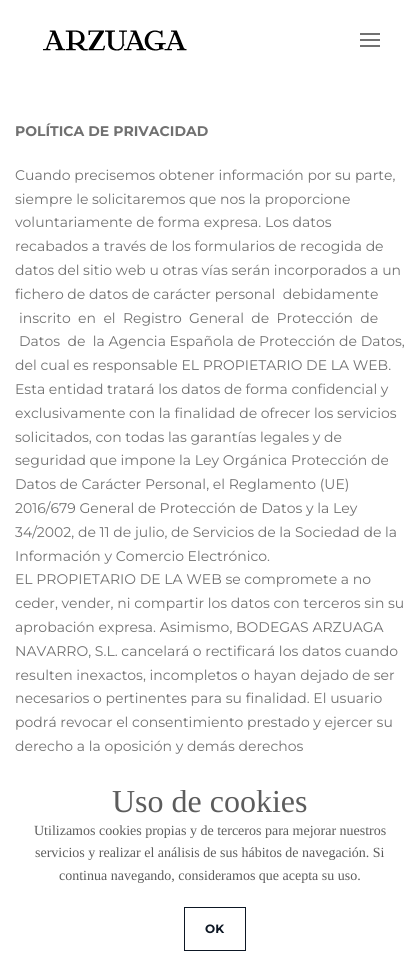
import math
import cairo


def use_color(cr, r, g, b):
  cr.set_source_rgb(r / 255, g / 255, b / 255)

def text(cr, x, y, s, family, size, color, bold=False, italic=False):
  cr.select_font_face(family, cairo.FONT_SLANT_ITALIC if italic else cairo.FONT_SLANT_NORMAL, cairo.FONT_WEIGHT_BOLD if bold else cairo.FONT_WEIGHT_NORMAL)
  cr.set_font_size(size)
  use_color(cr, *color)
  cr.move_to(x, y)
  cr.show_text(s)

def box(cr, x, y, w, h, *color):
  use_color(cr, *color)
  cr.rectangle(x, y, w, h)
  cr.fill()

def picture(cr, path, x, y, w, h):
  cr.save()
  cr.set_source_surface(cairo.ImageSurface.create_from_png(path), x, y)
  cr.rectangle(x, y, w, h)
  cr.fill()
  cr.restore()

def draw(cr):
  use_color(cr, 255, 255, 255)
  cr.paint()
  picture(cr, "img_01.png", 43, 30, 144, 21)
  box(cr, 360, 33, 20, 2, 113, 113, 113)
  box(cr, 360, 39, 20, 2, 113, 113, 113)
  box(cr, 360, 45, 20, 2, 113, 113, 113)
  cr.rectangle(184.5, 907.5, 61, 43)
  use_color(cr, 13, 23, 36)
  cr.set_line_width(1)
  cr.stroke()
  text(cr, 15, 136, "POLÍTICA DE PRIVACIDAD", "Montserrat Thin", 14, (113, 113, 113))
  text(cr, 15, 180, "Cuando precisemos obtener información por su parte,", "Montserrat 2 Thin", 14, (113, 113, 113))
  text(cr, 15, 204, "siempre le solicitaremos que nos la proporcione", "Montserrat 2 Thin", 14, (113, 113, 113))
  text(cr, 15, 227, "voluntariamente de forma expresa. Los datos", "Montserrat 2 Thin", 14, (113, 113, 113))
  text(cr, 15, 251, "recabados a través de los formularios de recogida de", "Montserrat 2 Thin", 14, (113, 113, 113))
  text(cr, 15, 275, "datos del sitio web u otras vías serán incorporados a un", "Montserrat 2 Thin", 14, (113, 113, 113))
  text(cr, 15, 299, "fichero de datos de carácter personal  debidamente", "Montserrat 2 Thin", 14, (113, 113, 113))
  text(cr, 19, 323, "inscrito  en  el  Registro  General  de  Protección  de", "Montserrat 2 Thin", 14, (113, 113, 113))
  text(cr, 19, 346, "Datos  de  la Agencia Española de Protección de Datos,", "Montserrat 2 Thin", 14, (113, 113, 113))
  text(cr, 15, 370, "del cual es responsable EL PROPIETARIO DE LA WEB.", "Montserrat 2 Thin", 14, (113, 113, 113))
  text(cr, 15, 394, "Esta entidad tratará los datos de forma confidencial y", "Montserrat 2 Thin", 14, (113, 113, 113))
  text(cr, 15, 418, "exclusivamente con la finalidad de ofrecer los servicios", "Montserrat 2 Thin", 14, (113, 113, 113))
  text(cr, 15, 442, "solicitados, con todas las garantías legales y de", "Montserrat 2 Thin", 14, (113, 113, 113))
  text(cr, 15, 465, "seguridad que impone la Ley Orgánica Protección de", "Montserrat 2 Thin", 14, (113, 113, 113))
  text(cr, 15, 489, "Datos de Carácter Personal, el Reglamento (UE)", "Montserrat 2 Thin", 14, (113, 113, 113))
  text(cr, 15, 513, "2016/679 General de Protección de Datos y la Ley", "Montserrat 2 Thin", 14, (113, 113, 113))
  text(cr, 15, 537, "34/2002, de 11 de julio, de Servicios de la Sociedad de la", "Montserrat 2 Thin", 14, (113, 113, 113))
  text(cr, 15, 561, "Información y Comercio Electrónico.", "Montserrat 2 Thin", 14, (113, 113, 113))
  text(cr, 15, 584, "EL PROPIETARIO DE LA WEB se compromete a no", "Montserrat 2 Thin", 14, (113, 113, 113))
  text(cr, 15, 608, "ceder, vender, ni compartir los datos con terceros sin su", "Montserrat 2 Thin", 14, (113, 113, 113))
  text(cr, 15, 632, "aprobación expresa. Asimismo, BODEGAS ARZUAGA", "Montserrat 2 Thin", 14, (113, 113, 113))
  text(cr, 15, 656, "NAVARRO, S.L. cancelará o rectificará los datos cuando", "Montserrat 2 Thin", 14, (113, 113, 113))
  text(cr, 15, 680, "resulten inexactos, incompletos o hayan dejado de ser", "Montserrat 2 Thin", 14, (113, 113, 113))
  text(cr, 15, 703, "necesarios o pertinentes para su finalidad. El usuario", "Montserrat 2 Thin", 14, (113, 113, 113))
  text(cr, 15, 727, "podrá revocar el consentimiento prestado y ejercer su", "Montserrat 2 Thin", 14, (113, 113, 113))
  text(cr, 15, 751, "derecho a la oposición y demás derechos", "Montserrat 2 Thin", 14, (113, 113, 113))
  cr.save()
  cr.rectangle(15, 790, 390, 30)
  cr.clip()
  text(cr, 112, 812, "Uso de cookies", "Liberation Serif", 32, (92, 92, 92))
  cr.restore()
  text(cr, 34, 835, "Utilizamos cookies propias y de terceros para mejorar nuestros", "Liberation Serif", 14, (92, 92, 92))
  text(cr, 35, 857, "servicios y realizar el análisis de sus hábitos de navegación. Si", "Liberation Serif", 14, (92, 92, 92))
  text(cr, 59, 880, "continua navegando, consideramos que acepta su uso.", "Liberation Serif", 14, (92, 92, 92))
  text(cr, 205, 933, "OK", "Montserrat Thin", 12, (13, 23, 36))


surface = cairo.ImageSurface(cairo.FORMAT_RGB24, 420, 971)
cr = cairo.Context(surface)
options = cairo.FontOptions()
options.set_hint_metrics(cairo.HINT_METRICS_OFF)
options.set_hint_style(cairo.HINT_STYLE_NONE)
cr.set_font_options(options)
cr.set_miter_limit(4)
draw(cr)
surface.write_to_png("out.png")
